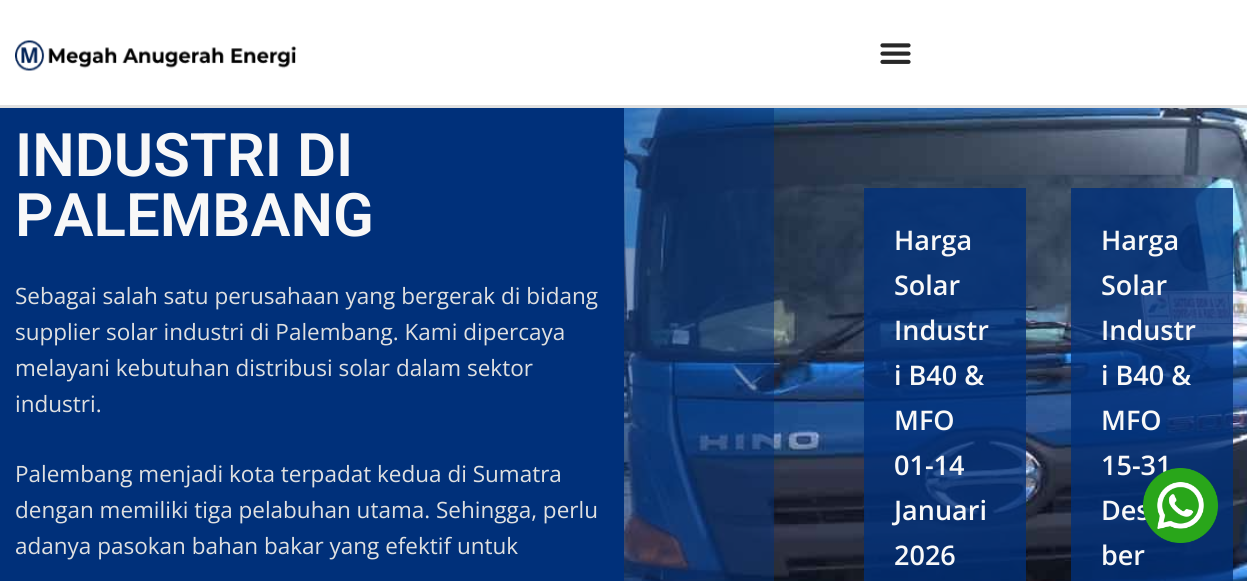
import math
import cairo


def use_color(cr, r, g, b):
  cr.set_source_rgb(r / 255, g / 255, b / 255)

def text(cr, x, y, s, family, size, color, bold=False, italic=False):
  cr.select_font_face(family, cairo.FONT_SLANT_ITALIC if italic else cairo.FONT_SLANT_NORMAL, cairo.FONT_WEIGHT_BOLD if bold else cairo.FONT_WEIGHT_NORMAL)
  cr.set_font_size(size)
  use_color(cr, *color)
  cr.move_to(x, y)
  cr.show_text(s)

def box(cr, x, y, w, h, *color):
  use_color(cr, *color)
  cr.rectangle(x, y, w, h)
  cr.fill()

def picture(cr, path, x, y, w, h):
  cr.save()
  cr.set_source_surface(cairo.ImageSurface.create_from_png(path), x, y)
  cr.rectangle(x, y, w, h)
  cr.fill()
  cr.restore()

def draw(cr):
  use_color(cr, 0, 48, 122)
  cr.paint()
  box(cr, 0, 0, 1247, 105, 255, 255, 255)
  box(cr, 0, 105, 1247, 3, 224, 224, 224)
  picture(cr, "img_01.png", 15, 40, 282, 31)
  picture(cr, "img_02.png", 880, 43, 31, 21)
  picture(cr, "img_03.png", 624, 108, 623, 473)
  cr.set_source_rgba(0, 0.188, 0.478, 0.5)
  cr.rectangle(624, 108, 150, 473)
  cr.fill()
  cr.set_source_rgba(0, 0.188, 0.478, 0.8)
  cr.rectangle(864, 188, 162, 393)
  cr.fill()
  cr.rectangle(1071, 188, 162, 393)
  cr.fill()
  text(cr, 15, 176, "INDUSTRI DI", "Roboto SemiBold", 60, (248, 248, 248))
  text(cr, 15, 236, "PALEMBANG", "Roboto SemiBold", 60, (248, 248, 248))
  text(cr, 15, 304, "Sebagai salah satu perusahaan yang bergerak di bidang", "Open Sans", 22.5, (224, 224, 224))
  text(cr, 15, 340, "supplier solar industri di Palembang. Kami dipercaya", "Open Sans", 22.5, (224, 224, 224))
  text(cr, 15, 376, "melayani kebutuhan distribusi solar dalam sektor", "Open Sans", 22.5, (224, 224, 224))
  text(cr, 15, 412, "industri.", "Open Sans", 22.5, (224, 224, 224))
  text(cr, 15, 482, "Palembang menjadi kota terpadat kedua di Sumatra", "Open Sans", 22.5, (224, 224, 224))
  text(cr, 15, 518, "dengan memiliki tiga pelabuhan utama. Sehingga, perlu", "Open Sans", 22.5, (224, 224, 224))
  text(cr, 15, 554, "adanya pasokan bahan bakar yang efektif untuk", "Open Sans", 22.5, (224, 224, 224))
  text(cr, 894, 250, "Harga", "Open Sans SemiBold", 27, (248, 248, 248))
  text(cr, 894, 295, "Solar", "Open Sans SemiBold", 27, (248, 248, 248))
  text(cr, 894, 340, "Industr", "Open Sans SemiBold", 27, (248, 248, 248))
  text(cr, 894, 385, "i B40 &", "Open Sans SemiBold", 27, (248, 248, 248))
  text(cr, 894, 430, "MFO", "Open Sans SemiBold", 27, (248, 248, 248))
  text(cr, 894, 475, "01-14", "Open Sans SemiBold", 27, (248, 248, 248))
  text(cr, 894, 520, "Januari", "Open Sans SemiBold", 27, (248, 248, 248))
  text(cr, 894, 565, "2026", "Open Sans SemiBold", 27, (248, 248, 248))
  text(cr, 1101, 250, "Harga", "Open Sans SemiBold", 27, (248, 248, 248))
  text(cr, 1101, 295, "Solar", "Open Sans SemiBold", 27, (248, 248, 248))
  text(cr, 1101, 340, "Industr", "Open Sans SemiBold", 27, (248, 248, 248))
  text(cr, 1101, 385, "i B40 &", "Open Sans SemiBold", 27, (248, 248, 248))
  text(cr, 1101, 430, "MFO", "Open Sans SemiBold", 27, (248, 248, 248))
  text(cr, 1101, 475, "15-31", "Open Sans SemiBold", 27, (248, 248, 248))
  text(cr, 1101, 520, "Des", "Open Sans SemiBold", 27, (248, 248, 248))
  text(cr, 1101, 565, "ber", "Open Sans SemiBold", 27, (248, 248, 248))
  picture(cr, "img_04.png", 1143, 468, 75, 75)


surface = cairo.ImageSurface(cairo.FORMAT_RGB24, 1247, 581)
cr = cairo.Context(surface)
options = cairo.FontOptions()
options.set_hint_metrics(cairo.HINT_METRICS_OFF)
options.set_hint_style(cairo.HINT_STYLE_NONE)
cr.set_font_options(options)
cr.set_miter_limit(4)
draw(cr)
surface.write_to_png("out.png")
